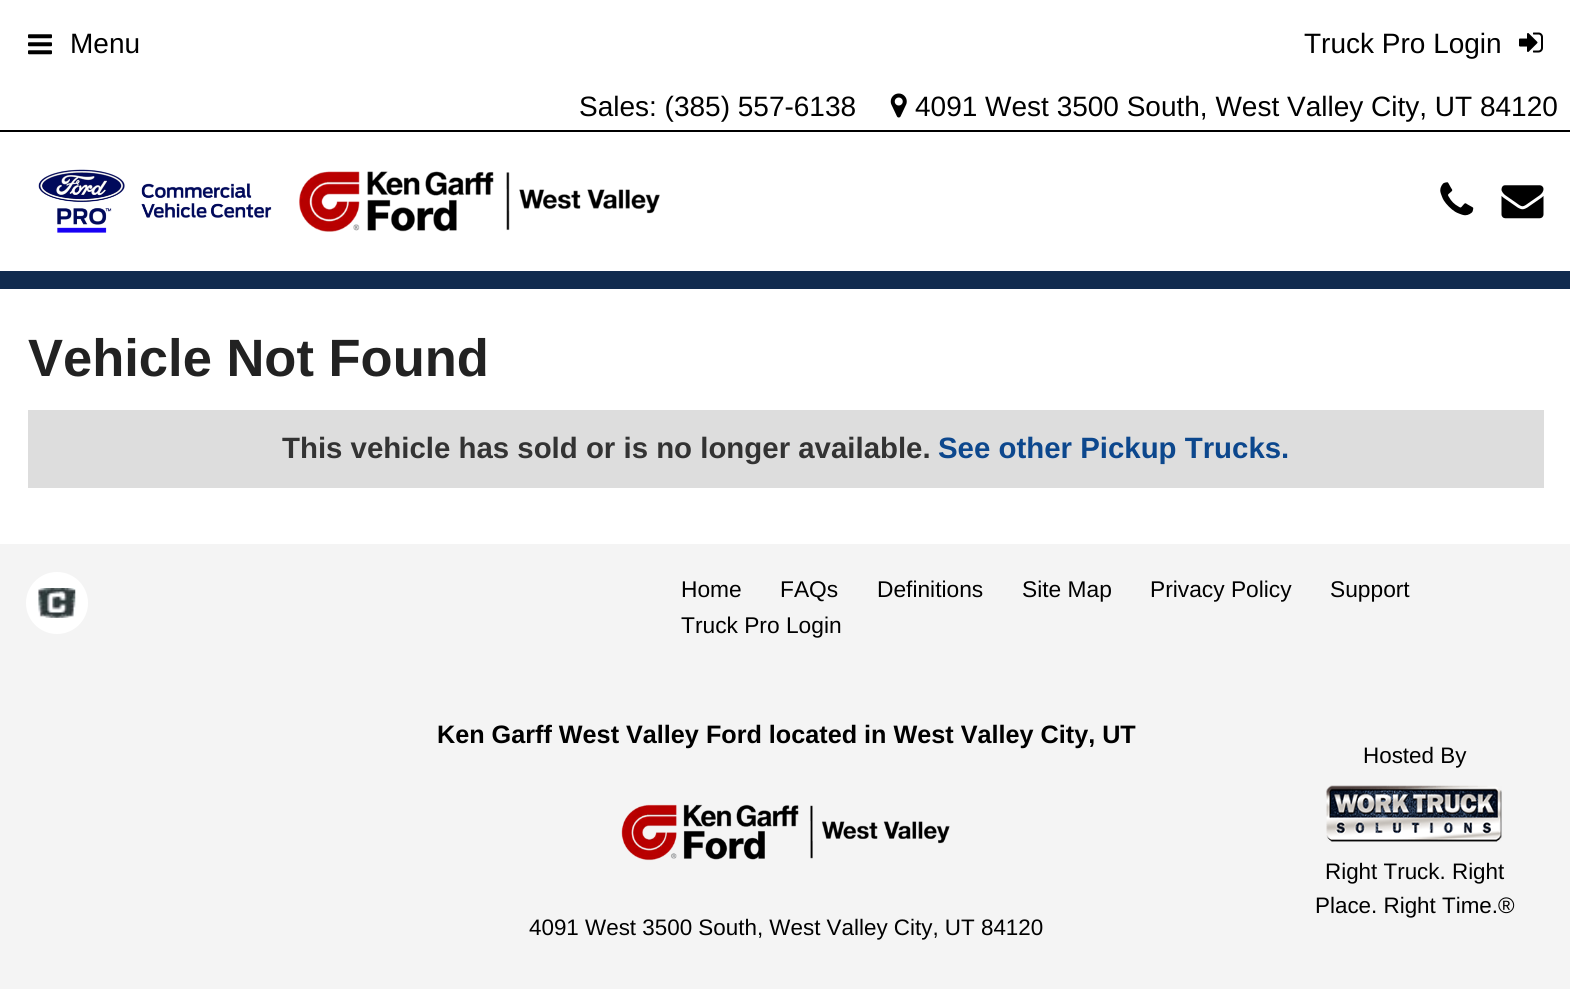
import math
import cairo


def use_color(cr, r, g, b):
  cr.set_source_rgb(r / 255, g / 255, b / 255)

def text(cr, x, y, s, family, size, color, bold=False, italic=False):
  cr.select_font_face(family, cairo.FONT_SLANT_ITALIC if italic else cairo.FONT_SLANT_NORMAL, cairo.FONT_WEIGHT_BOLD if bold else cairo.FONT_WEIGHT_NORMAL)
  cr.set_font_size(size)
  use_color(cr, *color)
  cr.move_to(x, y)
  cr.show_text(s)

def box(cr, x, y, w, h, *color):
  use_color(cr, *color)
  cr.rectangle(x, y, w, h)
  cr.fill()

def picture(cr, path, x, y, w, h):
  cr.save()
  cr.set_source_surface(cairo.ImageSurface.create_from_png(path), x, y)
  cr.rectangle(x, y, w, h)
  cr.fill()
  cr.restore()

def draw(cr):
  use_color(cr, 244, 244, 244)
  cr.paint()
  box(cr, 0, 0, 1570, 271, 255, 255, 255)
  picture(cr, "img_01.png", 28, 34, 24, 21)
  picture(cr, "img_02.png", 1519, 32, 24, 21)
  box(cr, 0, 130, 1570, 2, 0, 0, 0)
  picture(cr, "img_03.png", 890, 93, 17, 25)
  picture(cr, "img_04.png", 38, 169, 234, 64)
  picture(cr, "img_05.png", 299, 171, 361, 61)
  picture(cr, "img_06.png", 1440, 182, 34, 34)
  picture(cr, "img_07.png", 1501, 185, 43, 34)
  box(cr, 0, 271, 1570, 18, 17, 43, 78)
  box(cr, 0, 289, 1570, 255, 255, 255, 255)
  box(cr, 28, 410, 1516, 78, 221, 221, 221)
  use_color(cr, 255, 255, 255)
  cr.arc(57, 603, 31, 0, 2 * math.pi)
  cr.fill()
  picture(cr, "img_08.png", 38, 588, 38, 30)
  picture(cr, "img_09.png", 621, 804, 329, 57)
  picture(cr, "img_10.png", 1326, 785, 176, 57)
  text(cr, 70, 53, "Menu", "Liberation Sans", 28, (0, 0, 0))
  text(cr, 1304, 53, "Truck Pro Login", "Liberation Sans", 28, (0, 0, 0))
  text(cr, 579, 116, "Sales: (385) 557-6138", "Liberation Sans", 28, (0, 0, 0))
  text(cr, 915, 116, "4091 West 3500 South, West Valley City, UT 84120", "Liberation Sans", 28, (0, 0, 0))
  text(cr, 28, 376, "Vehicle Not Found", "Liberation Sans", 52.5, (34, 34, 34), bold=True)
  text(cr, 282, 458, "This vehicle has sold or is no longer available.", "Liberation Sans", 29.4, (51, 51, 51), bold=True)
  text(cr, 938, 458, "See other Pickup Trucks.", "Liberation Sans", 29.4, (12, 71, 141), bold=True)
  text(cr, 681, 597, "Home", "Liberation Sans", 22.75, (0, 0, 0))
  text(cr, 780, 597, "FAQs", "Liberation Sans", 22.75, (0, 0, 0))
  text(cr, 877, 597, "Definitions", "Liberation Sans", 22.75, (0, 0, 0))
  text(cr, 1022, 597, "Site Map", "Liberation Sans", 22.75, (0, 0, 0))
  text(cr, 1150, 597, "Privacy Policy", "Liberation Sans", 22.75, (0, 0, 0))
  text(cr, 1330, 597, "Support", "Liberation Sans", 22.75, (0, 0, 0))
  text(cr, 681, 633, "Truck Pro Login", "Liberation Sans", 22.75, (0, 0, 0))
  text(cr, 437, 743, "Ken Garff West Valley Ford located in West Valley City, UT", "Liberation Sans", 25.2, (0, 0, 0), bold=True)
  text(cr, 529, 935, "4091 West 3500 South, West Valley City, UT 84120", "Liberation Sans", 22.4, (0, 0, 0))
  text(cr, 1363, 763, "Hosted By", "Liberation Sans", 22.4, (0, 0, 0))
  text(cr, 1325, 879, "Right Truck. Right", "Liberation Sans", 22.4, (0, 0, 0))
  text(cr, 1315, 913, "Place. Right Time.®", "Liberation Sans", 22.4, (0, 0, 0))


surface = cairo.ImageSurface(cairo.FORMAT_RGB24, 1570, 989)
cr = cairo.Context(surface)
options = cairo.FontOptions()
options.set_hint_metrics(cairo.HINT_METRICS_OFF)
options.set_hint_style(cairo.HINT_STYLE_NONE)
cr.set_font_options(options)
cr.set_miter_limit(4)
draw(cr)
surface.write_to_png("out.png")
